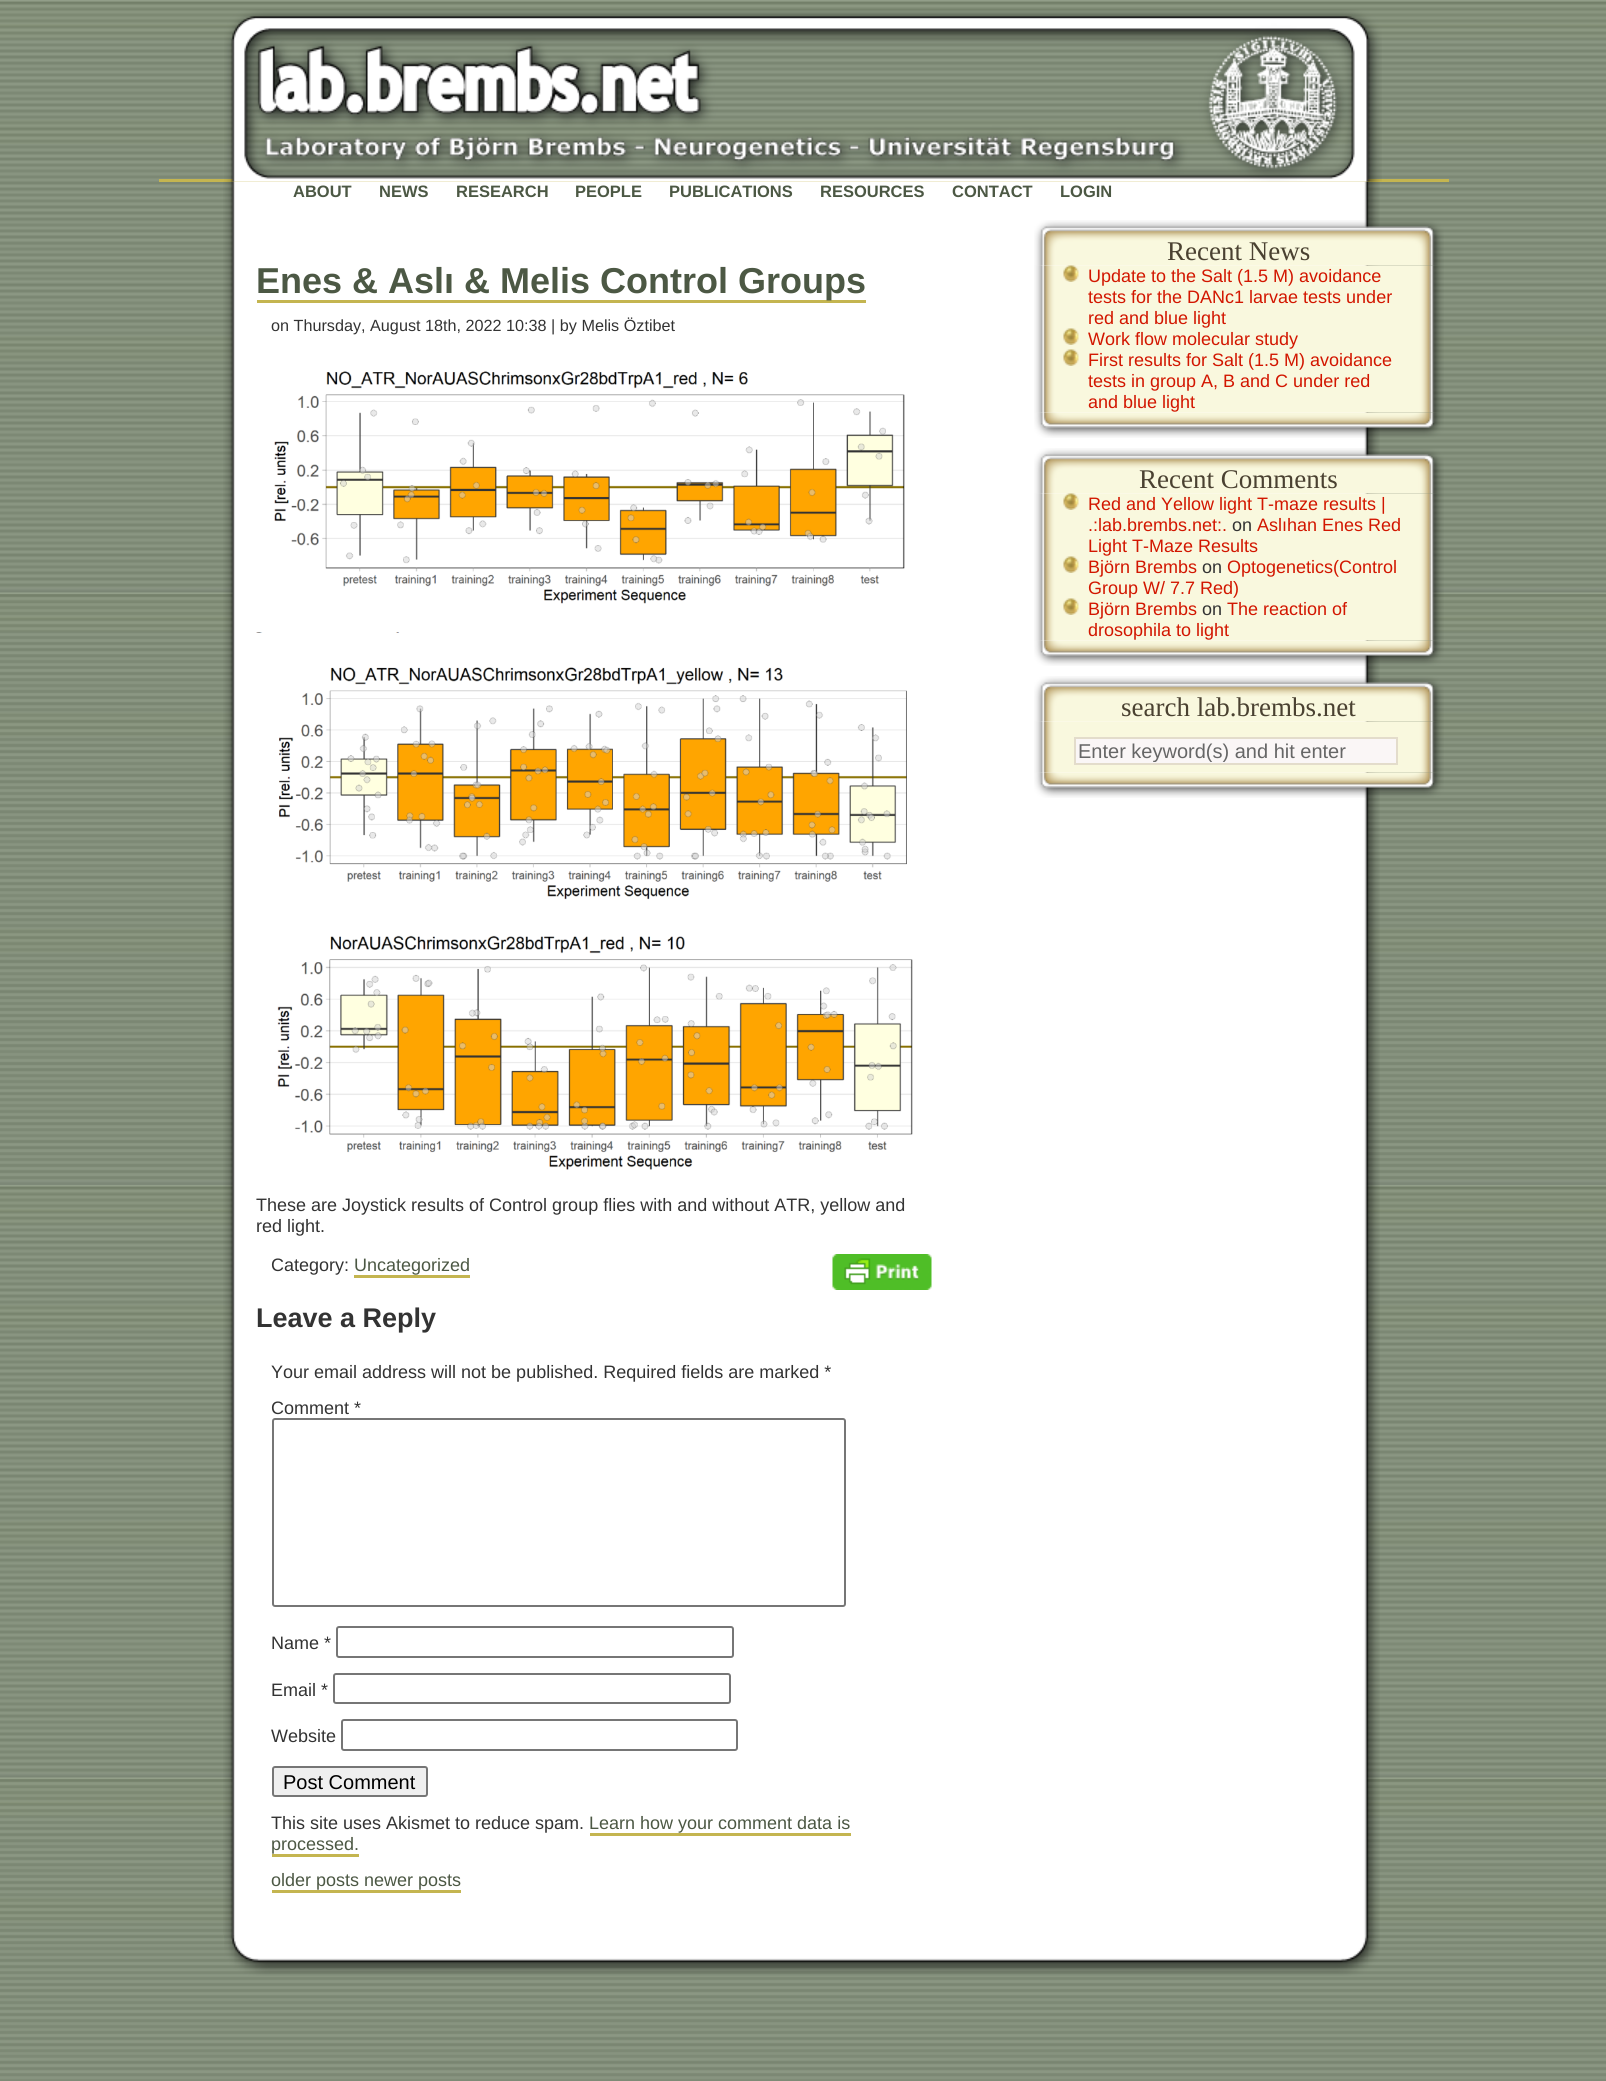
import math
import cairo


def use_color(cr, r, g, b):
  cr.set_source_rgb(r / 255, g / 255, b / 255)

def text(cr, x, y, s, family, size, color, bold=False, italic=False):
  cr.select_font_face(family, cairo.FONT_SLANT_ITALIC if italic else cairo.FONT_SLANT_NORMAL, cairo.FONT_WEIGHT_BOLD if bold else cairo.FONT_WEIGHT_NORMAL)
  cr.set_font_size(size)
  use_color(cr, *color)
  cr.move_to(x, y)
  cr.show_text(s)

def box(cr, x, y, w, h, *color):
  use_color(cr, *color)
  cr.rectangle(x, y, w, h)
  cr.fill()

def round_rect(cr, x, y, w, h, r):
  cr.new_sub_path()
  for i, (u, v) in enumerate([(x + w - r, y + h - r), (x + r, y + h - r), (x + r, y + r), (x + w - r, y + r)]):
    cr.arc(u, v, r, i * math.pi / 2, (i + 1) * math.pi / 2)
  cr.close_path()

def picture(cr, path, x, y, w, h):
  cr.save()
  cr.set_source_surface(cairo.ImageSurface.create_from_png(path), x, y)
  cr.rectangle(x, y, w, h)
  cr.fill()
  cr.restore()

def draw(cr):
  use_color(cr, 255, 255, 255)
  cr.paint()
  picture(cr, "img_01.png", 0, 0, 1606, 2081)
  box(cr, 159, 179, 1290, 3, 196, 181, 80)
  picture(cr, "img_03.png", 223, 181, 1157, 1754)
  picture(cr, "img_02.png", 224, 9, 1158, 173)
  box(cr, 257, 300, 609, 3, 196, 181, 80)
  picture(cr, "img_04.png", 256, 371, 649, 262)
  picture(cr, "img_05.png", 278, 667, 629, 233)
  picture(cr, "img_06.png", 277, 935, 636, 235)
  picture(cr, "img_07.png", 832, 1254, 100, 36)
  box(cr, 354, 1275, 116, 3, 196, 181, 80)
  round_rect(cr, 273, 1419, 572, 187, 2)
  use_color(cr, 118, 118, 118)
  cr.stroke()
  round_rect(cr, 337, 1627, 396, 30, 2)
  cr.stroke()
  round_rect(cr, 334, 1674, 396, 29, 2)
  cr.stroke()
  round_rect(cr, 342, 1720, 395, 30, 2)
  cr.stroke()
  use_color(cr, 239, 239, 239)
  round_rect(cr, 273, 1767, 154, 29, 2)
  cr.fill_preserve()
  use_color(cr, 118, 118, 118)
  cr.stroke()
  box(cr, 590, 1833, 261, 3, 196, 181, 80)
  box(cr, 272, 1854, 87, 3, 196, 181, 80)
  box(cr, 272, 1890, 189, 3, 196, 181, 80)
  picture(cr, "img_08.png", 1034, 220, 410, 46)
  picture(cr, "img_09.png", 1034, 265, 410, 148)
  picture(cr, "img_10.png", 1063, 265, 16, 17)
  picture(cr, "img_11.png", 1063, 328, 16, 17)
  picture(cr, "img_11.png", 1063, 349, 16, 17)
  picture(cr, "img_12.png", 1034, 412, 410, 26)
  picture(cr, "img_13.png", 1034, 448, 410, 46)
  picture(cr, "img_14.png", 1034, 493, 410, 148)
  picture(cr, "img_10.png", 1063, 493, 16, 17)
  picture(cr, "img_11.png", 1063, 556, 16, 17)
  picture(cr, "img_11.png", 1063, 598, 16, 17)
  picture(cr, "img_15.png", 1034, 640, 410, 26)
  picture(cr, "img_16.png", 1034, 676, 410, 46)
  picture(cr, "img_17.png", 1034, 721, 410, 52)
  use_color(cr, 250, 246, 246)
  cr.rectangle(1075, 738, 322, 26)
  cr.fill_preserve()
  use_color(cr, 227, 220, 203)
  cr.stroke()
  picture(cr, "img_18.png", 1034, 772, 410, 26)
  picture(cr, "img_19.png", 224, 1935, 1156, 41)
  text(cr, 293, 197, "ABOUT", "Liberation Sans", 16.5, (76, 88, 68), bold=True)
  text(cr, 379, 197, "NEWS", "Liberation Sans", 16.5, (76, 88, 68), bold=True)
  text(cr, 456, 197, "RESEARCH", "Liberation Sans", 16.5, (76, 88, 68), bold=True)
  text(cr, 575, 197, "PEOPLE", "Liberation Sans", 16.5, (76, 88, 68), bold=True)
  text(cr, 669, 197, "PUBLICATIONS", "Liberation Sans", 16.5, (76, 88, 68), bold=True)
  text(cr, 820, 197, "RESOURCES", "Liberation Sans", 16.5, (76, 88, 68), bold=True)
  text(cr, 952, 197, "CONTACT", "Liberation Sans", 16.5, (76, 88, 68), bold=True)
  text(cr, 1060, 197, "LOGIN", "Liberation Sans", 16.5, (76, 88, 68), bold=True)
  text(cr, 256, 293, "Enes & Aslı & Melis Control Groups", "Liberation Sans", 36, (76, 88, 68), bold=True)
  text(cr, 271, 331, "on Thursday, August 18th, 2022 10:38 | by Melis Öztibet", "Liberation Sans", 16.2, (51, 51, 51))
  text(cr, 256, 1211, "These are Joystick results of Control group flies with and without ATR, yellow and", "Liberation Sans", 18, (51, 51, 51))
  text(cr, 256, 1232, "red light.", "Liberation Sans", 18, (51, 51, 51))
  text(cr, 271, 1271, "Category:", "Liberation Sans", 18, (51, 51, 51))
  text(cr, 354, 1271, "Uncategorized", "Liberation Sans", 18, (76, 88, 68))
  text(cr, 256, 1327, "Leave a Reply", "Liberation Sans", 27, (51, 51, 51), bold=True)
  text(cr, 271, 1378, "Your email address will not be published. Required fields are marked *", "Liberation Sans", 18, (51, 51, 51))
  text(cr, 271, 1414, "Comment *", "Liberation Sans", 18, (51, 51, 51))
  text(cr, 271, 1649, "Name *", "Liberation Sans", 18, (51, 51, 51))
  text(cr, 271, 1696, "Email *", "Liberation Sans", 18, (51, 51, 51))
  text(cr, 271, 1742, "Website", "Liberation Sans", 18, (51, 51, 51))
  text(cr, 283, 1789, "Post Comment", "Liberation Sans", 20, (0, 0, 0))
  text(cr, 271, 1829, "This site uses Akismet to reduce spam.", "Liberation Sans", 18, (51, 51, 51))
  text(cr, 589, 1829, "Learn how your comment data is", "Liberation Sans", 18, (76, 88, 68))
  text(cr, 271, 1850, "processed.", "Liberation Sans", 18, (76, 88, 68))
  text(cr, 271, 1886, "older posts newer posts", "Liberation Sans", 18, (76, 88, 68))
  text(cr, 1167, 260, "Recent News", "Liberation Serif", 27, (74, 65, 49))
  text(cr, 1088, 282, "Update to the Salt (1.5 M) avoidance", "Liberation Sans", 18, (210, 22, 0))
  text(cr, 1088, 303, "tests for the DANc1 larvae tests under", "Liberation Sans", 18, (210, 22, 0))
  text(cr, 1088, 324, "red and blue light", "Liberation Sans", 18, (210, 22, 0))
  text(cr, 1088, 345, "Work flow molecular study", "Liberation Sans", 18, (210, 22, 0))
  text(cr, 1088, 366, "First results for Salt (1.5 M) avoidance", "Liberation Sans", 18, (210, 22, 0))
  text(cr, 1088, 387, "tests in group A, B and C under red", "Liberation Sans", 18, (210, 22, 0))
  text(cr, 1088, 408, "and blue light", "Liberation Sans", 18, (210, 22, 0))
  text(cr, 1139, 488, "Recent Comments", "Liberation Serif", 27, (74, 65, 49))
  text(cr, 1088, 510, "Red and Yellow light T-maze results |", "Liberation Sans", 18, (210, 22, 0))
  text(cr, 1088, 531, ".:lab.brembs.net:.", "Liberation Sans", 18, (210, 22, 0))
  text(cr, 1232, 531, "on", "Liberation Sans", 18, (51, 51, 51))
  text(cr, 1257, 531, "Aslıhan Enes Red", "Liberation Sans", 18, (210, 22, 0))
  text(cr, 1088, 552, "Light T-Maze Results", "Liberation Sans", 18, (210, 22, 0))
  text(cr, 1088, 573, "Björn Brembs", "Liberation Sans", 18, (210, 22, 0))
  text(cr, 1202, 573, "on", "Liberation Sans", 18, (51, 51, 51))
  text(cr, 1227, 573, "Optogenetics(Control", "Liberation Sans", 18, (210, 22, 0))
  text(cr, 1088, 594, "Group W/ 7.7 Red)", "Liberation Sans", 18, (210, 22, 0))
  text(cr, 1088, 615, "Björn Brembs", "Liberation Sans", 18, (210, 22, 0))
  text(cr, 1202, 615, "on", "Liberation Sans", 18, (51, 51, 51))
  text(cr, 1227, 615, "The reaction of", "Liberation Sans", 18, (210, 22, 0))
  text(cr, 1088, 636, "drosophila to light", "Liberation Sans", 18, (210, 22, 0))
  text(cr, 1121, 716, "search lab.brembs.net", "Liberation Serif", 27, (74, 65, 49))
  cr.save()
  cr.rectangle(1079, 740, 315, 22)
  cr.clip()
  text(cr, 1078, 758, "Enter keyword(s) and hit enter", "Liberation Sans", 20, (102, 102, 102))
  cr.restore()


surface = cairo.ImageSurface(cairo.FORMAT_RGB24, 1606, 2081)
cr = cairo.Context(surface)
options = cairo.FontOptions()
options.set_hint_metrics(cairo.HINT_METRICS_OFF)
options.set_hint_style(cairo.HINT_STYLE_NONE)
cr.set_font_options(options)
cr.set_miter_limit(4)
draw(cr)
surface.write_to_png("out.png")
